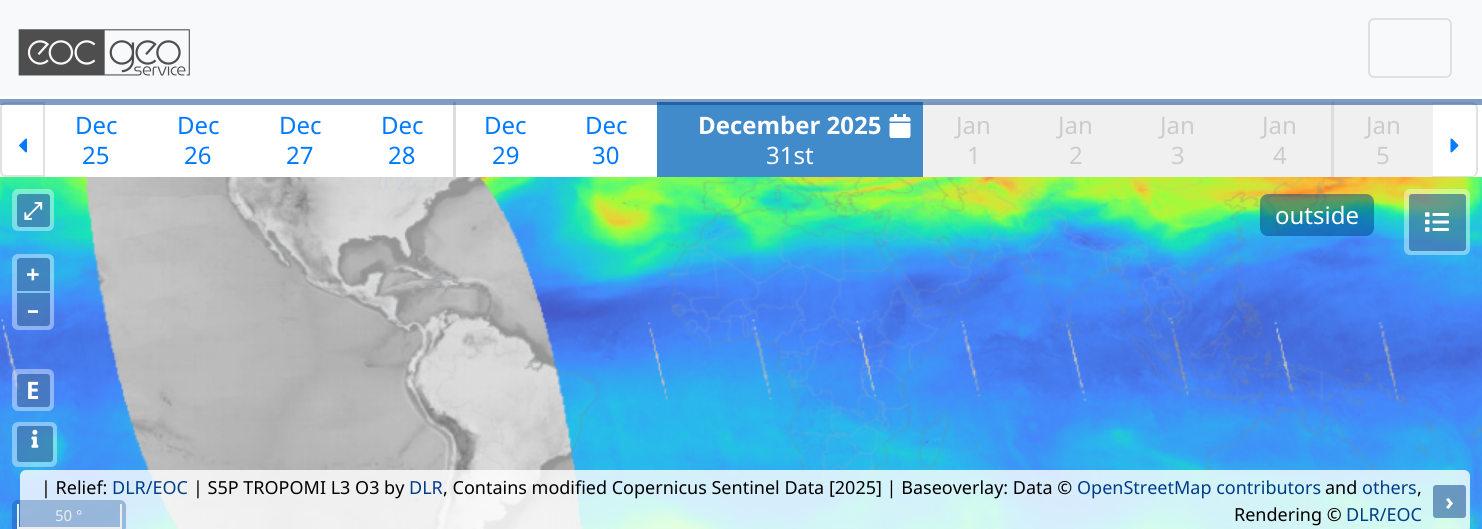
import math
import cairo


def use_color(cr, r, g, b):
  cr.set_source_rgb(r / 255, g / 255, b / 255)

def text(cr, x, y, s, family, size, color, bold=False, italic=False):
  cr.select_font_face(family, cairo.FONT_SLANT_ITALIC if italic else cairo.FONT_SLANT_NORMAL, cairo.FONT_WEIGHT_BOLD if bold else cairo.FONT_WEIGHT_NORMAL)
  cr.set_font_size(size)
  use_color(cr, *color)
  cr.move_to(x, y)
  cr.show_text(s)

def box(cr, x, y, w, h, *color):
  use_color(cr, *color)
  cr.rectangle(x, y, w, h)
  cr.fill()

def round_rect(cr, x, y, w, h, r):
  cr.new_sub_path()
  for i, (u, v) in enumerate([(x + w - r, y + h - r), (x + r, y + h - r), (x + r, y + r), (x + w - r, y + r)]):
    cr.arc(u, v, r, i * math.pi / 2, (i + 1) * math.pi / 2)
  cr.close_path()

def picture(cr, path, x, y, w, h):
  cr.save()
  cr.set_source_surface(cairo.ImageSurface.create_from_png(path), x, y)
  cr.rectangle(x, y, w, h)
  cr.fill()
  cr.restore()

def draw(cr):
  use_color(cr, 255, 255, 255)
  cr.paint()
  box(cr, 0, 0, 1482, 96, 248, 249, 250)
  picture(cr, "img_01.png", 18, 29, 172, 47)
  round_rect(cr, 1369, 19, 82, 58, 5)
  use_color(cr, 223, 224, 225)
  cr.stroke()
  cr.new_path()
  cr.move_to(6, 103)
  cr.line_to(44, 103)
  cr.line_to(44, 176)
  cr.line_to(6, 176)
  cr.curve_to(3, 176, 1, 174, 1, 171)
  cr.line_to(1, 108)
  cr.curve_to(1, 105, 3, 103, 6, 103)
  cr.close_path()
  use_color(cr, 222, 226, 230)
  cr.stroke()
  box(cr, 453, 102, 3, 75, 221, 221, 221)
  box(cr, 657, 102, 266, 75, 66, 139, 202)
  box(cr, 923, 102, 408, 75, 240, 240, 240)
  box(cr, 1334, 102, 99, 75, 240, 240, 240)
  box(cr, 1331, 102, 3, 75, 221, 221, 221)
  use_color(cr, 222, 226, 230)
  cr.set_fill_rule(cairo.FILL_RULE_EVEN_ODD)
  cr.new_path()
  cr.move_to(1432, 102)
  cr.line_to(1472, 102)
  cr.curve_to(1475, 102, 1478, 105, 1478, 108)
  cr.line_to(1478, 171)
  cr.curve_to(1478, 174, 1475, 177, 1472, 177)
  cr.line_to(1432, 177)
  cr.close_path()
  cr.move_to(1432, 104)
  cr.line_to(1472, 104)
  cr.curve_to(1474, 104, 1476, 106, 1476, 108)
  cr.line_to(1476, 171)
  cr.curve_to(1476, 173, 1474, 176, 1472, 176)
  cr.line_to(1432, 176)
  cr.close_path()
  cr.fill()
  cr.set_source_rgba(0, 0.235, 0.533, 0.5)
  cr.rectangle(0, 99, 1482, 6)
  cr.fill()
  picture(cr, "img_02.png", 19, 138, 8, 15)
  picture(cr, "img_03.png", 889, 114, 22, 24)
  picture(cr, "img_04.png", 1450, 138, 9, 15)
  picture(cr, "img_07.png", 1, 177, 1399, 352)
  picture(cr, "img_05.png", 0, 177, 1482, 352)
  picture(cr, "img_06.png", 0, 177, 1482, 352)
  cr.set_source_rgba(1, 1, 1, 0.4)
  round_rect(cr, 12, 189, 42, 42, 6)
  cr.fill()
  cr.set_source_rgba(0, 0.235, 0.533, 0.5)
  round_rect(cr, 17, 194, 33, 33, 3)
  cr.fill()
  round_rect(cr, 1260, 194, 114, 42, 8)
  cr.fill()
  cr.set_source_rgba(1, 1, 1, 0.4)
  round_rect(cr, 1404, 189, 66, 66, 6)
  cr.fill()
  cr.set_source_rgba(0, 0.235, 0.533, 0.5)
  round_rect(cr, 1409, 194, 57, 57, 3)
  cr.fill()
  picture(cr, "img_08.png", 1425, 212, 24, 20)
  cr.set_source_rgba(1, 1, 1, 0.4)
  round_rect(cr, 12, 254, 42, 76, 6)
  cr.fill()
  cr.set_source_rgba(0, 0.235, 0.533, 0.5)
  cr.new_path()
  cr.move_to(20, 258)
  cr.line_to(47, 258)
  cr.curve_to(48.5, 258, 50, 259.5, 50, 261)
  cr.line_to(50, 291)
  cr.line_to(17, 291)
  cr.line_to(17, 261)
  cr.curve_to(17, 259.5, 18.5, 258, 20, 258)
  cr.close_path()
  cr.fill()
  cr.new_path()
  cr.move_to(17, 293)
  cr.line_to(50, 293)
  cr.line_to(50, 323)
  cr.curve_to(50, 324.5, 48.5, 326, 47, 326)
  cr.line_to(20, 326)
  cr.curve_to(18.5, 326, 17, 324.5, 17, 323)
  cr.close_path()
  cr.fill()
  cr.set_source_rgba(1, 1, 1, 0.4)
  round_rect(cr, 12, 369, 42, 42, 6)
  cr.fill()
  cr.set_source_rgba(0, 0.235, 0.533, 0.5)
  round_rect(cr, 17, 374, 33, 33, 3)
  cr.fill()
  cr.set_source_rgba(1, 1, 1, 0.4)
  round_rect(cr, 12, 422, 45, 45, 6)
  cr.fill()
  cr.set_source_rgba(0, 0.235, 0.533, 0.5)
  round_rect(cr, 17, 426, 36, 36, 3)
  cr.fill()
  picture(cr, "img_09.png", 31, 429, 8, 19)
  cr.set_source_rgba(1, 1, 1, 0.8)
  round_rect(cr, 20, 470, 1450, 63, 6)
  cr.fill()
  cr.set_source_rgba(0, 0.235, 0.533, 0.5)
  round_rect(cr, 1433, 485, 33, 33, 3)
  cr.fill()
  cr.set_source_rgba(0, 0.235, 0.533, 0.3)
  round_rect(cr, 12, 500, 114, 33, 6)
  cr.fill()
  box(cr, 120, 504, 2, 24, 238, 238, 238)
  box(cr, 17, 527, 105, 2, 238, 238, 238)
  box(cr, 17, 504, 2, 24, 238, 238, 238)
  text(cr, 75, 134, "Dec", "Noto Sans", 24, (0, 123, 255))
  text(cr, 82, 164, "25", "Noto Sans", 24, (0, 123, 255))
  text(cr, 177, 134, "Dec", "Noto Sans", 24, (0, 123, 255))
  text(cr, 184, 164, "26", "Noto Sans", 24, (0, 123, 255))
  text(cr, 279, 134, "Dec", "Noto Sans", 24, (0, 123, 255))
  text(cr, 286, 164, "27", "Noto Sans", 24, (0, 123, 255))
  text(cr, 381, 134, "Dec", "Noto Sans", 24, (0, 123, 255))
  text(cr, 388, 164, "28", "Noto Sans", 24, (0, 123, 255))
  text(cr, 484, 134, "Dec", "Noto Sans", 24, (0, 123, 255))
  text(cr, 492, 164, "29", "Noto Sans", 24, (0, 123, 255))
  text(cr, 585, 134, "Dec", "Noto Sans", 24, (0, 123, 255))
  text(cr, 592, 164, "30", "Noto Sans", 24, (0, 123, 255))
  text(cr, 698, 134, "December 2025", "Noto Sans", 24, (255, 255, 255), bold=True)
  text(cr, 766, 164, "31st", "Noto Sans", 24, (255, 255, 255))
  text(cr, 956, 134, "Jan", "Noto Sans", 24, (204, 204, 204))
  text(cr, 967, 164, "1", "Noto Sans", 24, (204, 204, 204))
  text(cr, 1058, 134, "Jan", "Noto Sans", 24, (204, 204, 204))
  text(cr, 1069, 164, "2", "Noto Sans", 24, (204, 204, 204))
  text(cr, 1160, 134, "Jan", "Noto Sans", 24, (204, 204, 204))
  text(cr, 1171, 164, "3", "Noto Sans", 24, (204, 204, 204))
  text(cr, 1262, 134, "Jan", "Noto Sans", 24, (204, 204, 204))
  text(cr, 1273, 164, "4", "Noto Sans", 24, (204, 204, 204))
  text(cr, 1366, 134, "Jan", "Noto Sans", 24, (204, 204, 204))
  text(cr, 1376, 164, "5", "Noto Sans", 24, (204, 204, 204))
  text(cr, 23, 219, "⤢", "FreeSerif", 24, (255, 255, 255), bold=True)
  text(cr, 1275, 224, "outside", "Noto Sans", 24, (255, 255, 255))
  text(cr, 26, 283, "+", "Noto Sans", 24, (255, 255, 255), bold=True)
  text(cr, 27, 318, "–", "Noto Sans", 24, (255, 255, 255), bold=True)
  text(cr, 26, 399, "E", "Noto Sans", 24, (255, 255, 255), bold=True)
  text(cr, 41, 494, "| Relief:", "Noto Sans", 18, (0, 0, 0))
  text(cr, 112, 494, "DLR/EOC", "Noto Sans", 18, (0, 60, 136))
  text(cr, 193, 494, "| S5P TROPOMI L3 O3 by", "Noto Sans", 18, (0, 0, 0))
  text(cr, 409, 494, "DLR", "Noto Sans", 18, (0, 60, 136))
  text(cr, 443, 494, ", Contains modified Copernicus Sentinel Data [2025] | Baseoverlay: Data ©", "Noto Sans", 18, (0, 0, 0))
  text(cr, 1077, 494, "OpenStreetMap contributors", "Noto Sans", 18, (0, 60, 136))
  text(cr, 1325, 494, "and", "Noto Sans", 18, (0, 0, 0))
  text(cr, 1362, 494, "others", "Noto Sans", 18, (0, 60, 136))
  text(cr, 1417, 494, ",", "Noto Sans", 18, (0, 0, 0))
  text(cr, 1234, 521, "Rendering ©", "Noto Sans", 18, (0, 0, 0))
  text(cr, 1346, 521, "DLR/EOC", "Noto Sans", 18, (0, 60, 136))
  text(cr, 1445, 510, "›", "Noto Sans", 24, (255, 255, 255), bold=True)
  text(cr, 55, 521, "50 °", "Noto Sans", 15, (238, 238, 238))


surface = cairo.ImageSurface(cairo.FORMAT_RGB24, 1482, 529)
cr = cairo.Context(surface)
options = cairo.FontOptions()
options.set_hint_metrics(cairo.HINT_METRICS_OFF)
options.set_hint_style(cairo.HINT_STYLE_NONE)
cr.set_font_options(options)
cr.set_miter_limit(4)
draw(cr)
surface.write_to_png("out.png")
